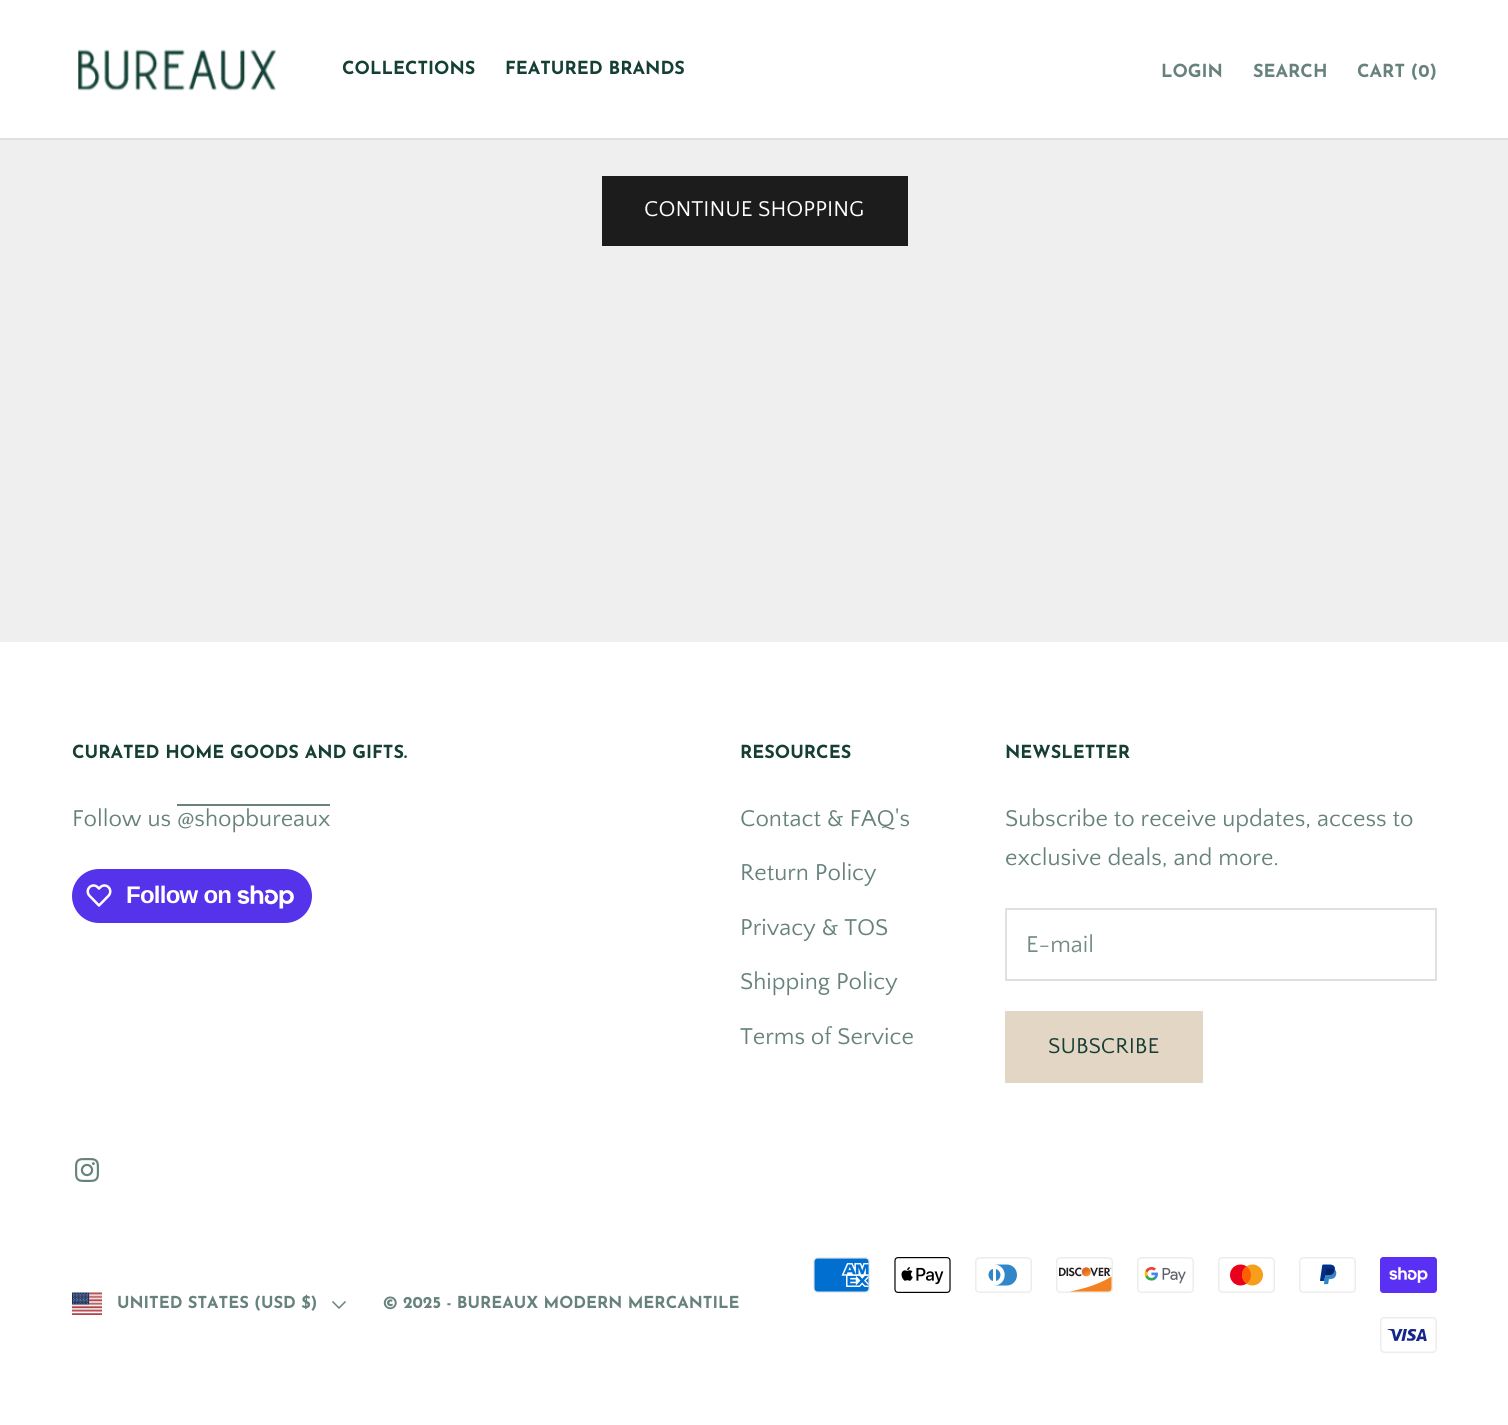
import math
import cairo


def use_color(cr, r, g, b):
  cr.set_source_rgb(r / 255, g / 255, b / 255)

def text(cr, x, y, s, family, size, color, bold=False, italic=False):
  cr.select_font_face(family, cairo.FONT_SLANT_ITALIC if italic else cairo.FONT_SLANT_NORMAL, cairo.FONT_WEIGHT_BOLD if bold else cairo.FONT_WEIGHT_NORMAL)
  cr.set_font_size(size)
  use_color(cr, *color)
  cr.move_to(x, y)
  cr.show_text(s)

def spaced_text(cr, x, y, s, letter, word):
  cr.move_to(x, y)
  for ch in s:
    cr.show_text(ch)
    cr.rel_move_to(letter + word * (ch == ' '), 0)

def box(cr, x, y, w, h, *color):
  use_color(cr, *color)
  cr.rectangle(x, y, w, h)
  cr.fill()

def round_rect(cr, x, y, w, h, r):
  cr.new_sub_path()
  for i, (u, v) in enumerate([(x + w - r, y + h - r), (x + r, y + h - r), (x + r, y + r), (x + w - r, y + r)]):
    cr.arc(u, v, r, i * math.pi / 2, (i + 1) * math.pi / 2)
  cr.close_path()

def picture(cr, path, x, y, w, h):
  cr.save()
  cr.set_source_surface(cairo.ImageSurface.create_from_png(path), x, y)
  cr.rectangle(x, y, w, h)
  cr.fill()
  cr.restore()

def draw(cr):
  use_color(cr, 239, 239, 239)
  cr.paint()
  box(cr, 0, 0, 1508, 138, 255, 255, 255)
  box(cr, 0, 138, 1508, 2, 220, 226, 225)
  picture(cr, "img_01.png", 78, 49, 198, 42)
  use_color(cr, 28, 28, 28)
  cr.rectangle(603, 177, 304, 68)
  cr.fill_preserve()
  cr.stroke()
  box(cr, 0, 642, 1508, 783, 255, 255, 255)
  box(cr, 177, 804, 153, 2, 103, 130, 124)
  use_color(cr, 84, 51, 235)
  round_rect(cr, 72, 869, 240, 54, 27)
  cr.fill()
  picture(cr, "img_02.png", 86, 884, 26, 23)
  picture(cr, "img_03.png", 237, 885, 57, 24)
  cr.rectangle(1006, 909, 430, 71)
  use_color(cr, 220, 226, 225)
  cr.stroke()
  use_color(cr, 228, 214, 197)
  cr.rectangle(1006, 1012, 196, 70)
  cr.fill_preserve()
  cr.stroke()
  picture(cr, "img_04.png", 75, 1158, 24, 24)
  picture(cr, "img_05.png", 72, 1292, 30, 23)
  cr.new_path()
  cr.move_to(333, 1302)
  cr.line_to(339, 1308)
  cr.line_to(345, 1302)
  use_color(cr, 103, 130, 124)
  cr.set_line_width(1.5)
  cr.set_line_cap(cairo.LINE_CAP_SQUARE)
  cr.stroke()
  picture(cr, "img_06.png", 813, 1257, 57, 36)
  picture(cr, "img_07.png", 894, 1257, 57, 36)
  picture(cr, "img_08.png", 975, 1257, 57, 36)
  picture(cr, "img_09.png", 1056, 1257, 57, 36)
  picture(cr, "img_10.png", 1137, 1257, 57, 36)
  picture(cr, "img_11.png", 1218, 1257, 57, 36)
  picture(cr, "img_12.png", 1299, 1257, 57, 36)
  picture(cr, "img_13.png", 1380, 1257, 57, 36)
  picture(cr, "img_14.png", 1380, 1317, 57, 36)
  text(cr, 342, 74, "COLLECTIONS", "Josefin Sans", 18, (21, 62, 53), bold=True)
  text(cr, 505, 74, "FEATURED BRANDS", "Josefin Sans", 18, (21, 62, 53), bold=True)
  text(cr, 1161, 77, "LOGIN", "Josefin Sans", 18, (103, 130, 124), bold=True)
  text(cr, 1253, 77, "SEARCH", "Josefin Sans", 18, (103, 130, 124), bold=True)
  text(cr, 1357, 77, "CART (0)", "Josefin Sans", 18, (103, 130, 124), bold=True)
  text(cr, 644, 216, "CONTINUE SHOPPING", "Quattrocento Sans", 22.5, (255, 255, 255))
  text(cr, 72, 758, "CURATED HOME GOODS AND GIFTS.", "Josefin Sans", 18, (21, 62, 53), bold=True)
  text(cr, 72, 826, "Follow us @shopbureaux", "Quattrocento Sans", 24, (103, 130, 124))
  cr.select_font_face("Liberation Sans", cairo.FONT_SLANT_NORMAL, cairo.FONT_WEIGHT_BOLD)
  use_color(cr, 255, 255, 255)
  spaced_text(cr, 126, 903, "Follow on", -0.75, 0)
  text(cr, 740, 758, "RESOURCES", "Josefin Sans", 18, (21, 62, 53), bold=True)
  text(cr, 740, 826, "Contact & FAQ's", "Quattrocento Sans", 24, (103, 130, 124))
  text(cr, 740, 880, "Return Policy", "Quattrocento Sans", 24, (103, 130, 124))
  text(cr, 740, 935, "Privacy & TOS", "Quattrocento Sans", 24, (103, 130, 124))
  text(cr, 740, 989, "Shipping Policy", "Quattrocento Sans", 24, (103, 130, 124))
  text(cr, 740, 1044, "Terms of Service", "Quattrocento Sans", 24, (103, 130, 124))
  text(cr, 1005, 758, "NEWSLETTER", "Josefin Sans", 18, (21, 62, 53), bold=True)
  text(cr, 1005, 826, "Subscribe to receive updates, access to", "Quattrocento Sans", 24, (103, 130, 124))
  text(cr, 1005, 865, "exclusive deals, and more.", "Quattrocento Sans", 24, (103, 130, 124))
  text(cr, 1026, 952, "E-mail", "Quattrocento Sans", 24, (115, 139, 134))
  text(cr, 1048, 1053, "SUBSCRIBE", "Quattrocento Sans", 22.5, (21, 62, 53))
  text(cr, 117, 1308, "UNITED STATES (USD $)", "Josefin Sans", 16.5, (103, 130, 124), bold=True)
  text(cr, 383, 1308, "© 2025 - BUREAUX MODERN MERCANTILE", "Josefin Sans", 16.5, (103, 130, 124), bold=True)


surface = cairo.ImageSurface(cairo.FORMAT_RGB24, 1508, 1425)
cr = cairo.Context(surface)
options = cairo.FontOptions()
options.set_hint_metrics(cairo.HINT_METRICS_OFF)
options.set_hint_style(cairo.HINT_STYLE_NONE)
cr.set_font_options(options)
cr.set_miter_limit(4)
draw(cr)
surface.write_to_png("out.png")
